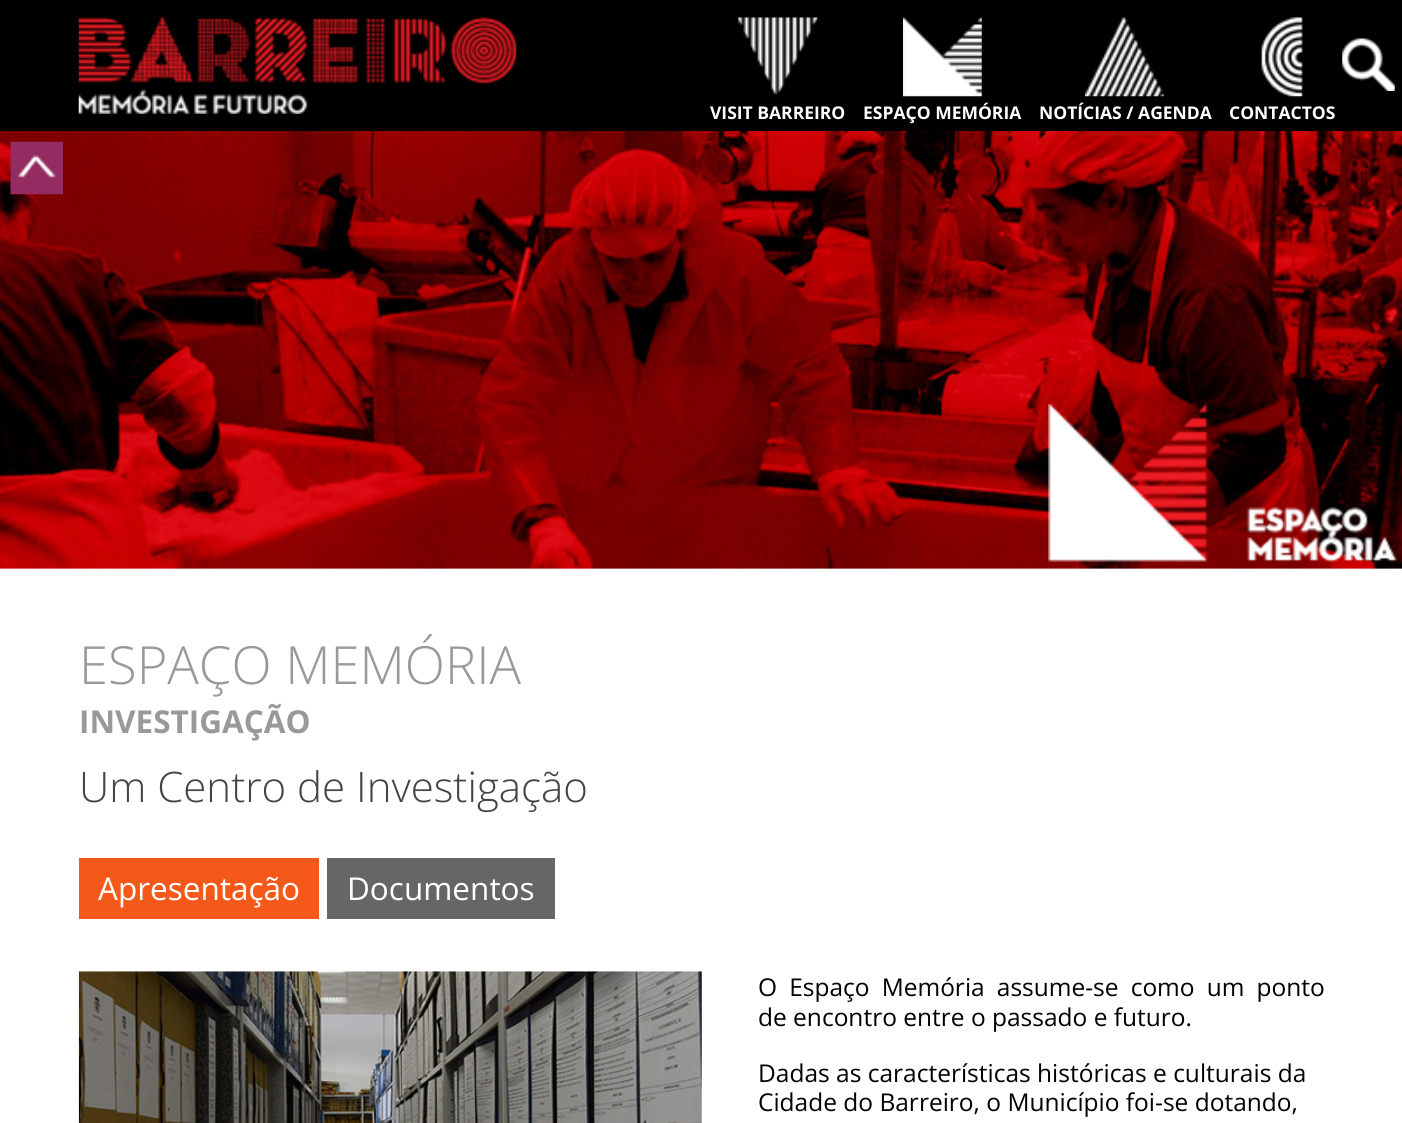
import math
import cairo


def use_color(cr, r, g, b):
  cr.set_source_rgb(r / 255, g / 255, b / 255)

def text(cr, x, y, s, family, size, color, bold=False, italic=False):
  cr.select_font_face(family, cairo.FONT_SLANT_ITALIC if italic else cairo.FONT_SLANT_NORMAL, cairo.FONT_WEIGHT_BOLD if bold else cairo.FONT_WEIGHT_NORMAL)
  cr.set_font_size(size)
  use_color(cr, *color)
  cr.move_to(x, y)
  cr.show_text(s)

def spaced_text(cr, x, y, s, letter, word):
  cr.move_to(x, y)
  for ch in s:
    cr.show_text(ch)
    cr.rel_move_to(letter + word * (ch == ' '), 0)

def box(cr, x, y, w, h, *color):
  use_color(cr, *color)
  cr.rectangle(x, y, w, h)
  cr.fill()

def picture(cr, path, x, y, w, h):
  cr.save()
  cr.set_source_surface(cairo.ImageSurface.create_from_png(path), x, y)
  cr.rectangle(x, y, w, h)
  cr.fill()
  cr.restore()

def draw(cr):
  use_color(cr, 255, 255, 255)
  cr.paint()
  box(cr, 0, 0, 1402, 131, 0, 0, 0)
  picture(cr, "img_01.png", 1342, 38, 53, 53)
  picture(cr, "img_02.png", 78, 17, 439, 97)
  picture(cr, "img_03.png", 738, 17, 80, 78)
  picture(cr, "img_04.png", 903, 17, 79, 80)
  picture(cr, "img_05.png", 1085, 17, 79, 80)
  picture(cr, "img_06.png", 1261, 17, 42, 80)
  picture(cr, "img_07.png", 0, 131, 1402, 438)
  picture(cr, "img_08.png", 10, 141, 53, 54)
  picture(cr, "img_09.png", 1048, 404, 349, 158)
  box(cr, 79, 858, 240, 61, 245, 89, 26)
  box(cr, 327, 858, 228, 61, 102, 102, 102)
  picture(cr, "img_10.png", 78, 971, 624, 152)
  text(cr, 710, 119, "VISIT BARREIRO", "Open Sans", 17.5, (255, 255, 255), bold=True)
  text(cr, 863, 119, "ESPAÇO MEMÓRIA", "Open Sans", 17.5, (255, 255, 255), bold=True)
  text(cr, 1039, 119, "NOTÍCIAS / AGENDA", "Open Sans", 17.5, (255, 255, 255), bold=True)
  text(cr, 1229, 119, "CONTACTOS", "Open Sans", 17.5, (255, 255, 255), bold=True)
  text(cr, 79, 684, "ESPAÇO MEMÓRIA", "Open Sans Light", 52.5, (153, 153, 153))
  text(cr, 79, 733, "INVESTIGAÇÃO", "Open Sans", 31.5, (153, 153, 153), bold=True)
  text(cr, 79, 802, "Um Centro de Investigação", "Open Sans Light", 42, (68, 68, 68))
  text(cr, 98, 900, "Apresentação", "Open Sans", 31.5, (255, 255, 255))
  text(cr, 347, 900, "Documentos", "Open Sans", 31.5, (255, 255, 255))
  cr.set_font_size(24.5)
  use_color(cr, 0, 0, 0)
  spaced_text(cr, 758, 996, "O Espaço Memória assume-se como um ponto", 0, 5.75)
  text(cr, 758, 1026, "de encontro entre o passado e futuro.", "Open Sans", 24.5, (0, 0, 0))
  text(cr, 758, 1082, "Dadas as características históricas e culturais da", "Open Sans", 24.5, (0, 0, 0))
  text(cr, 758, 1111, "Cidade do Barreiro, o Município foi-se dotando,", "Open Sans", 24.5, (0, 0, 0))


surface = cairo.ImageSurface(cairo.FORMAT_RGB24, 1402, 1123)
cr = cairo.Context(surface)
options = cairo.FontOptions()
options.set_hint_metrics(cairo.HINT_METRICS_OFF)
options.set_hint_style(cairo.HINT_STYLE_NONE)
cr.set_font_options(options)
cr.set_miter_limit(4)
draw(cr)
surface.write_to_png("out.png")
